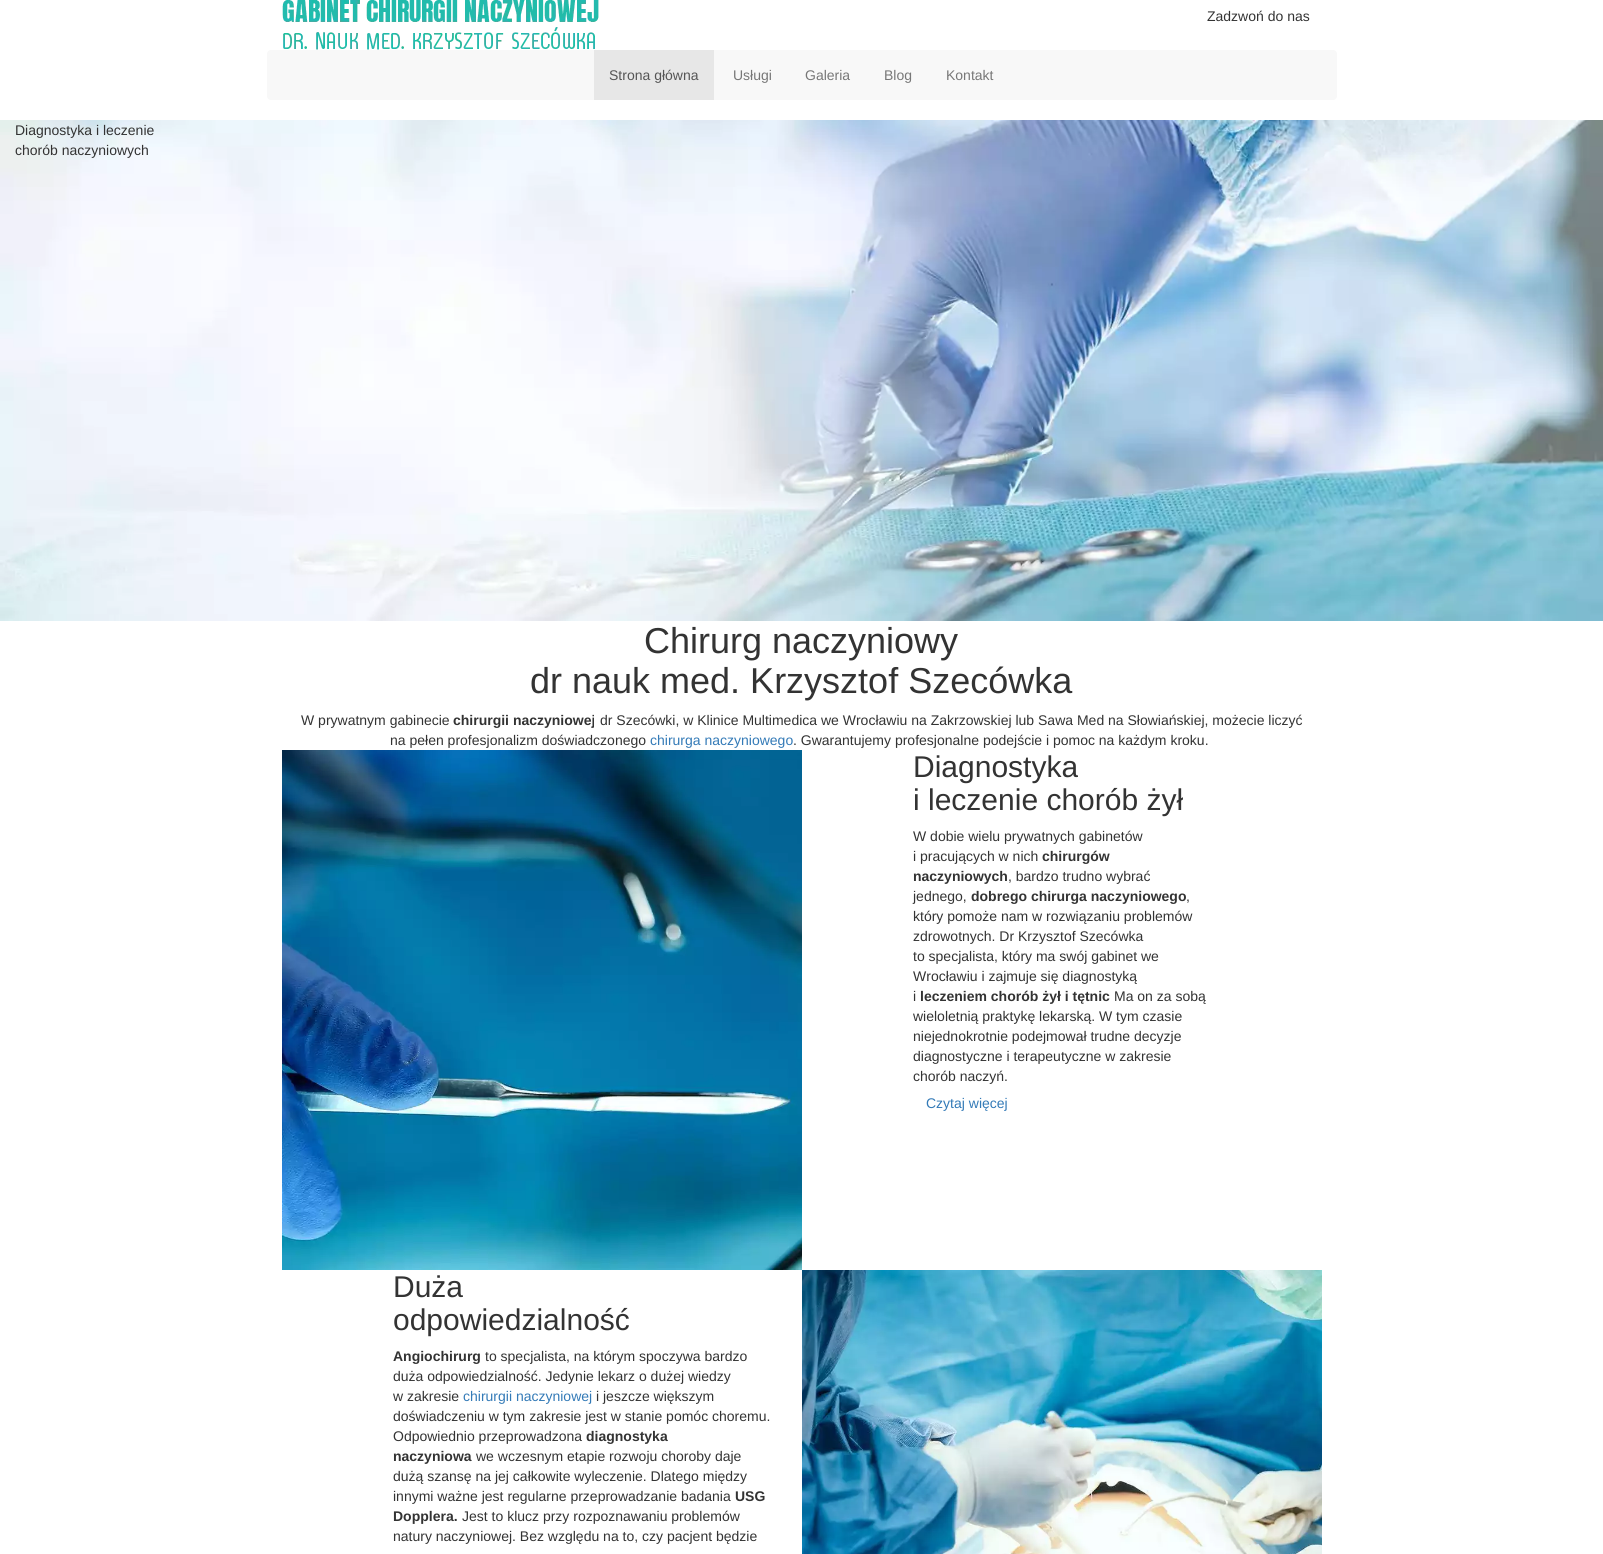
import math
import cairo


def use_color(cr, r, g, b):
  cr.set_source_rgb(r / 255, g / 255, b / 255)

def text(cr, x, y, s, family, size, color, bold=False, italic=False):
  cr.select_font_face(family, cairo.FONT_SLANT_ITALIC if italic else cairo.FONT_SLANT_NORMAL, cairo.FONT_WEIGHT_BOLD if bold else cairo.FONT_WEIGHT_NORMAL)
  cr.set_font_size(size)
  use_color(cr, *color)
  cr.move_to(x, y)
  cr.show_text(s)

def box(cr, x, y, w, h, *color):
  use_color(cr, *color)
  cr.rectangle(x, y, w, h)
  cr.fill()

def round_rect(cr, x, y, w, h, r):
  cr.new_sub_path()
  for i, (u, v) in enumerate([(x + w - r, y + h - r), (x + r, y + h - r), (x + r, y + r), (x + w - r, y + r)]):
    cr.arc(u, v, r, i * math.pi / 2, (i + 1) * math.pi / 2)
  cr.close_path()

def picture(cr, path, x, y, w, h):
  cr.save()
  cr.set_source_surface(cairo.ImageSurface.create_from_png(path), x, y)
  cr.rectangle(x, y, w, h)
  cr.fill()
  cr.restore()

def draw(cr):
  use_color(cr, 255, 255, 255)
  cr.paint()
  picture(cr, "img_01.png", 282, 0, 317, 50)
  use_color(cr, 248, 248, 248)
  round_rect(cr, 267, 50, 1070, 50, 4)
  cr.fill()
  box(cr, 594, 50, 120, 50, 231, 231, 231)
  picture(cr, "img_02.png", 0, 120, 1603, 501)
  picture(cr, "img_03.png", 282, 750, 520, 520)
  picture(cr, "img_04.png", 802, 1270, 520, 284)
  text(cr, 1207, 21, "Zadzwoń do nas", "Liberation Sans", 14, (51, 51, 51))
  text(cr, 609, 80, "Strona główna", "Liberation Sans", 14, (85, 85, 85))
  text(cr, 733, 80, "Usługi", "Liberation Sans", 14, (119, 119, 119))
  text(cr, 805, 80, "Galeria", "Liberation Sans", 14, (119, 119, 119))
  text(cr, 884, 80, "Blog", "Liberation Sans", 14, (119, 119, 119))
  text(cr, 946, 80, "Kontakt", "Liberation Sans", 14, (119, 119, 119))
  text(cr, 15, 135, "Diagnostyka i leczenie", "Liberation Sans", 14, (51, 51, 51))
  text(cr, 15, 155, "chorób naczyniowych", "Liberation Sans", 14, (51, 51, 51))
  text(cr, 644, 653, "Chirurg naczyniowy", "Liberation Sans", 36, (51, 51, 51))
  text(cr, 530, 693, "dr nauk med. Krzysztof Szecówka", "Liberation Sans", 36, (51, 51, 51))
  text(cr, 301, 725, "W prywatnym gabinecie", "Liberation Sans", 14, (51, 51, 51))
  text(cr, 453, 725, "chirurgii naczyniowej", "Liberation Sans", 14, (51, 51, 51), bold=True)
  text(cr, 600, 725, "dr Szecówki, w Klinice Multimedica we Wrocławiu na Zakrzowskiej lub Sawa Med na Słowiańskiej, możecie liczyć", "Liberation Sans", 14, (51, 51, 51))
  text(cr, 390, 745, "na pełen profesjonalizm doświadczonego", "Liberation Sans", 14, (51, 51, 51))
  text(cr, 650, 745, "chirurga naczyniowego", "Liberation Sans", 14, (51, 122, 183))
  text(cr, 793, 745, ". Gwarantujemy profesjonalne podejście i pomoc na każdym kroku.", "Liberation Sans", 14, (51, 51, 51))
  text(cr, 913, 777, "Diagnostyka", "Liberation Sans", 30, (51, 51, 51))
  text(cr, 913, 810, "i leczenie chorób żył", "Liberation Sans", 30, (51, 51, 51))
  text(cr, 913, 841, "W dobie wielu prywatnych gabinetów", "Liberation Sans", 14, (51, 51, 51))
  text(cr, 913, 861, "i pracujących w nich", "Liberation Sans", 14, (51, 51, 51))
  text(cr, 1042, 861, "chirurgów", "Liberation Sans", 14, (51, 51, 51), bold=True)
  text(cr, 913, 881, "naczyniowych", "Liberation Sans", 14, (51, 51, 51), bold=True)
  text(cr, 1008, 881, ", bardzo trudno wybrać", "Liberation Sans", 14, (51, 51, 51))
  text(cr, 913, 901, "jednego,", "Liberation Sans", 14, (51, 51, 51))
  text(cr, 971, 901, "dobrego chirurga naczyniowego", "Liberation Sans", 14, (51, 51, 51), bold=True)
  text(cr, 1186, 901, ",", "Liberation Sans", 14, (51, 51, 51))
  text(cr, 913, 921, "który pomoże nam w rozwiązaniu problemów", "Liberation Sans", 14, (51, 51, 51))
  text(cr, 913, 941, "zdrowotnych. Dr Krzysztof Szecówka", "Liberation Sans", 14, (51, 51, 51))
  text(cr, 913, 961, "to specjalista, który ma swój gabinet we", "Liberation Sans", 14, (51, 51, 51))
  text(cr, 913, 981, "Wrocławiu i zajmuje się diagnostyką", "Liberation Sans", 14, (51, 51, 51))
  text(cr, 913, 1001, "i", "Liberation Sans", 14, (51, 51, 51))
  text(cr, 920, 1001, "leczeniem chorób żył i tętnic", "Liberation Sans", 14, (51, 51, 51), bold=True)
  text(cr, 1114, 1001, "Ma on za sobą", "Liberation Sans", 14, (51, 51, 51))
  text(cr, 913, 1021, "wieloletnią praktykę lekarską. W tym czasie", "Liberation Sans", 14, (51, 51, 51))
  text(cr, 913, 1041, "niejednokrotnie podejmował trudne decyzje", "Liberation Sans", 14, (51, 51, 51))
  text(cr, 913, 1061, "diagnostyczne i terapeutyczne w zakresie", "Liberation Sans", 14, (51, 51, 51))
  text(cr, 913, 1081, "chorób naczyń.", "Liberation Sans", 14, (51, 51, 51))
  text(cr, 926, 1108, "Czytaj więcej", "Liberation Sans", 14, (51, 122, 183))
  text(cr, 393, 1297, "Duża", "Liberation Sans", 30, (51, 51, 51))
  text(cr, 393, 1330, "odpowiedzialność", "Liberation Sans", 30, (51, 51, 51))
  text(cr, 393, 1361, "Angiochirurg", "Liberation Sans", 14, (51, 51, 51), bold=True)
  text(cr, 485, 1361, "to specjalista, na którym spoczywa bardzo", "Liberation Sans", 14, (51, 51, 51))
  text(cr, 393, 1381, "duża odpowiedzialność. Jedynie lekarz o dużej wiedzy", "Liberation Sans", 14, (51, 51, 51))
  text(cr, 393, 1401, "w zakresie", "Liberation Sans", 14, (51, 51, 51))
  text(cr, 463, 1401, "chirurgii naczyniowej", "Liberation Sans", 14, (51, 122, 183))
  text(cr, 596, 1401, "i jeszcze większym", "Liberation Sans", 14, (51, 51, 51))
  text(cr, 393, 1421, "doświadczeniu w tym zakresie jest w stanie pomóc choremu.", "Liberation Sans", 14, (51, 51, 51))
  text(cr, 393, 1441, "Odpowiednio przeprowadzona", "Liberation Sans", 14, (51, 51, 51))
  text(cr, 586, 1441, "diagnostyka", "Liberation Sans", 14, (51, 51, 51), bold=True)
  text(cr, 393, 1461, "naczyniowa", "Liberation Sans", 14, (51, 51, 51), bold=True)
  text(cr, 476, 1461, "we wczesnym etapie rozwoju choroby daje", "Liberation Sans", 14, (51, 51, 51))
  text(cr, 393, 1481, "dużą szansę na jej całkowite wyleczenie. Dlatego między", "Liberation Sans", 14, (51, 51, 51))
  text(cr, 393, 1501, "innymi ważne jest regularne przeprowadzanie badania", "Liberation Sans", 14, (51, 51, 51))
  text(cr, 735, 1501, "USG", "Liberation Sans", 14, (51, 51, 51), bold=True)
  text(cr, 393, 1521, "Dopplera.", "Liberation Sans", 14, (51, 51, 51), bold=True)
  text(cr, 462, 1521, "Jest to klucz przy rozpoznawaniu problemów", "Liberation Sans", 14, (51, 51, 51))
  text(cr, 393, 1541, "natury naczyniowej. Bez względu na to, czy pacjent będzie", "Liberation Sans", 14, (51, 51, 51))


surface = cairo.ImageSurface(cairo.FORMAT_RGB24, 1603, 1554)
cr = cairo.Context(surface)
options = cairo.FontOptions()
options.set_hint_metrics(cairo.HINT_METRICS_OFF)
options.set_hint_style(cairo.HINT_STYLE_NONE)
cr.set_font_options(options)
cr.set_miter_limit(4)
draw(cr)
surface.write_to_png("out.png")
